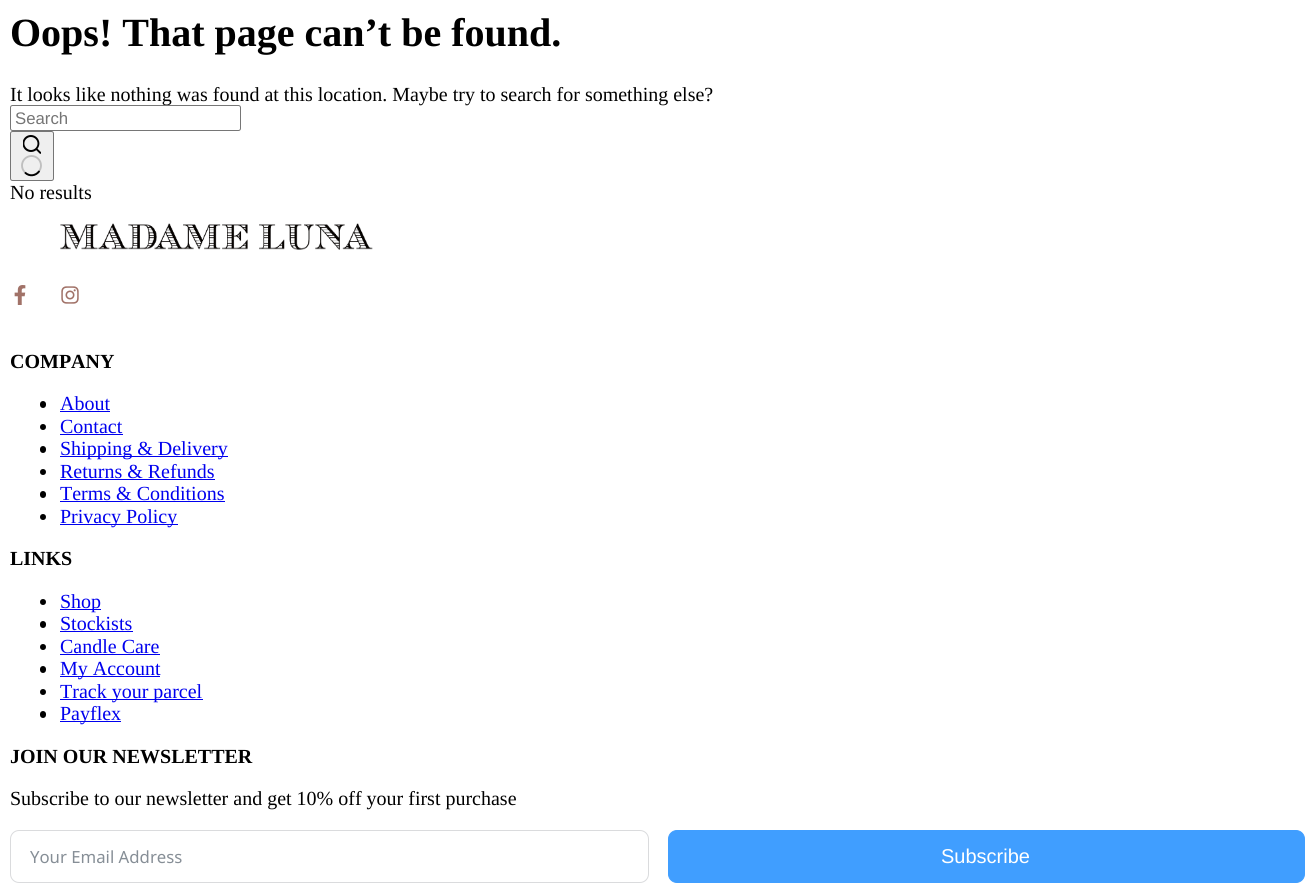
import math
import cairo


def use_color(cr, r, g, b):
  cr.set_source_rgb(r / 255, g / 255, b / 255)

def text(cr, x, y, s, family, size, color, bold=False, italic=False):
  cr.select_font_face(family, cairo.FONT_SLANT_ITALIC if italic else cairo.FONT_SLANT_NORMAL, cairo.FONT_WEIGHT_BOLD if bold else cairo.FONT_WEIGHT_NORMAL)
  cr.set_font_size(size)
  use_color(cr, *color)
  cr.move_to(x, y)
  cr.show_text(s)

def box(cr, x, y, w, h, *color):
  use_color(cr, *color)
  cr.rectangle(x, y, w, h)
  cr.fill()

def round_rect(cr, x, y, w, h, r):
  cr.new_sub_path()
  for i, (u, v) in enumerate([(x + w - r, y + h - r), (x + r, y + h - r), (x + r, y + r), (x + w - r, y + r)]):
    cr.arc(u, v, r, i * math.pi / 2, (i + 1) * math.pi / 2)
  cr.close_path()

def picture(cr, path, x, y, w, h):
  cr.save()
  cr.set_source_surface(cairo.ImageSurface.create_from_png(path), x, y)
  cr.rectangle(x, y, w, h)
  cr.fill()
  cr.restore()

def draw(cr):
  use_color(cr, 255, 255, 255)
  cr.paint()
  use_color(cr, 239, 239, 239)
  round_rect(cr, 10.5, 131.5, 43, 49, 2)
  cr.fill_preserve()
  use_color(cr, 118, 118, 118)
  cr.set_line_width(1)
  cr.stroke()
  picture(cr, "img_01.png", 23, 135, 18, 19)
  cr.arc(31.5, 165.5, 9.5, 0, 2 * math.pi)
  use_color(cr, 191, 191, 191)
  cr.set_line_width(1.9)
  cr.stroke()
  cr.new_path()
  cr.move_to(39, 171.5)
  cr.curve_to(35.5, 176, 29.5, 176.5, 25.5, 173)
  use_color(cr, 0, 0, 0)
  cr.set_line_cap(cairo.LINE_CAP_ROUND)
  cr.stroke()
  picture(cr, "img_02.png", 60, 223, 313, 27)
  picture(cr, "img_03.png", 14, 285, 12, 20)
  picture(cr, "img_04.png", 61, 286, 18, 18)
  round_rect(cr, 40, 401, 6, 7, 3)
  cr.fill()
  box(cr, 60, 411, 50, 1, 0, 0, 238)
  use_color(cr, 0, 0, 0)
  cr.arc(43, 427, 3, 0, 2 * math.pi)
  cr.fill()
  box(cr, 60, 434, 63, 1, 0, 0, 238)
  use_color(cr, 0, 0, 0)
  round_rect(cr, 40, 446, 6, 7, 3)
  cr.fill()
  box(cr, 60, 456, 168, 1, 0, 0, 238)
  use_color(cr, 0, 0, 0)
  cr.arc(43, 472, 3, 0, 2 * math.pi)
  cr.fill()
  box(cr, 60, 479, 155, 1, 0, 0, 238)
  use_color(cr, 0, 0, 0)
  round_rect(cr, 40, 491, 6, 7, 3)
  cr.fill()
  box(cr, 60, 501, 165, 1, 0, 0, 238)
  use_color(cr, 0, 0, 0)
  cr.arc(43, 517, 3, 0, 2 * math.pi)
  cr.fill()
  box(cr, 60, 524, 118, 1, 0, 0, 238)
  use_color(cr, 0, 0, 0)
  cr.arc(43, 602, 3, 0, 2 * math.pi)
  cr.fill()
  box(cr, 60, 609, 41, 1, 0, 0, 238)
  use_color(cr, 0, 0, 0)
  round_rect(cr, 40, 621, 6, 7, 3)
  cr.fill()
  box(cr, 60, 631, 73, 1, 0, 0, 238)
  use_color(cr, 0, 0, 0)
  cr.arc(43, 647, 3, 0, 2 * math.pi)
  cr.fill()
  box(cr, 60, 654, 100, 1, 0, 0, 238)
  use_color(cr, 0, 0, 0)
  round_rect(cr, 40, 666, 6, 7, 3)
  cr.fill()
  box(cr, 60, 676, 100, 1, 0, 0, 238)
  use_color(cr, 0, 0, 0)
  cr.arc(43, 692, 3, 0, 2 * math.pi)
  cr.fill()
  box(cr, 60, 699, 143, 1, 0, 0, 238)
  use_color(cr, 0, 0, 0)
  round_rect(cr, 40, 711, 6, 7, 3)
  cr.fill()
  box(cr, 60, 721, 61, 1, 0, 0, 238)
  round_rect(cr, 10.5, 830.5, 638, 52, 8.5)
  use_color(cr, 218, 219, 221)
  cr.set_line_width(1)
  cr.set_line_cap(cairo.LINE_CAP_BUTT)
  cr.stroke()
  use_color(cr, 64, 158, 255)
  round_rect(cr, 668.5, 830.5, 636, 52, 8.5)
  cr.fill_preserve()
  cr.stroke()
  text(cr, 10, 46, "Oops! That page can’t be found.", "Liberation Serif", 40, (0, 0, 0), bold=True)
  text(cr, 10, 101, "It looks like nothing was found at this location. Maybe try to search for something else?", "Liberation Serif", 20, (0, 0, 0))
  use_color(cr, 255, 255, 255)
  round_rect(cr, 10.5, 105.5, 230, 25, 2)
  cr.fill_preserve()
  use_color(cr, 118, 118, 118)
  cr.stroke()
  text(cr, 15, 124, "Search", "Liberation Sans", 16.75, (117, 117, 117))
  text(cr, 10, 199, "No results", "Liberation Serif", 20, (0, 0, 0))
  text(cr, 10, 368, "COMPANY", "Liberation Serif", 20, (0, 0, 0), bold=True)
  text(cr, 60, 410, "About", "Liberation Serif", 20, (0, 0, 238))
  text(cr, 60, 433, "Contact", "Liberation Serif", 20, (0, 0, 238))
  text(cr, 60, 455, "Shipping & Delivery", "Liberation Serif", 20, (0, 0, 238))
  text(cr, 60, 478, "Returns & Refunds", "Liberation Serif", 20, (0, 0, 238))
  text(cr, 60, 500, "Terms & Conditions", "Liberation Serif", 20, (0, 0, 238))
  text(cr, 60, 523, "Privacy Policy", "Liberation Serif", 20, (0, 0, 238))
  text(cr, 10, 565, "LINKS", "Liberation Serif", 20, (0, 0, 0), bold=True)
  text(cr, 60, 608, "Shop", "Liberation Serif", 20, (0, 0, 238))
  text(cr, 60, 630, "Stockists", "Liberation Serif", 20, (0, 0, 238))
  text(cr, 60, 653, "Candle Care", "Liberation Serif", 20, (0, 0, 238))
  text(cr, 60, 675, "My Account", "Liberation Serif", 20, (0, 0, 238))
  text(cr, 60, 698, "Track your parcel", "Liberation Serif", 20, (0, 0, 238))
  text(cr, 60, 720, "Payflex", "Liberation Serif", 20, (0, 0, 238))
  text(cr, 10, 763, "JOIN OUR NEWSLETTER", "Liberation Serif", 20, (0, 0, 0), bold=True)
  text(cr, 10, 805, "Subscribe to our newsletter and get 10% off your first purchase", "Liberation Serif", 20, (0, 0, 0))
  text(cr, 30, 863, "Your Email Address", "Noto Sans", 16.75, (134, 142, 150))
  text(cr, 941, 863, "Subscribe", "Liberation Sans", 20, (255, 255, 255))


surface = cairo.ImageSurface(cairo.FORMAT_RGB24, 1315, 886)
cr = cairo.Context(surface)
options = cairo.FontOptions()
options.set_hint_metrics(cairo.HINT_METRICS_OFF)
options.set_hint_style(cairo.HINT_STYLE_NONE)
cr.set_font_options(options)
cr.set_miter_limit(4)
draw(cr)
surface.write_to_png("out.png")
